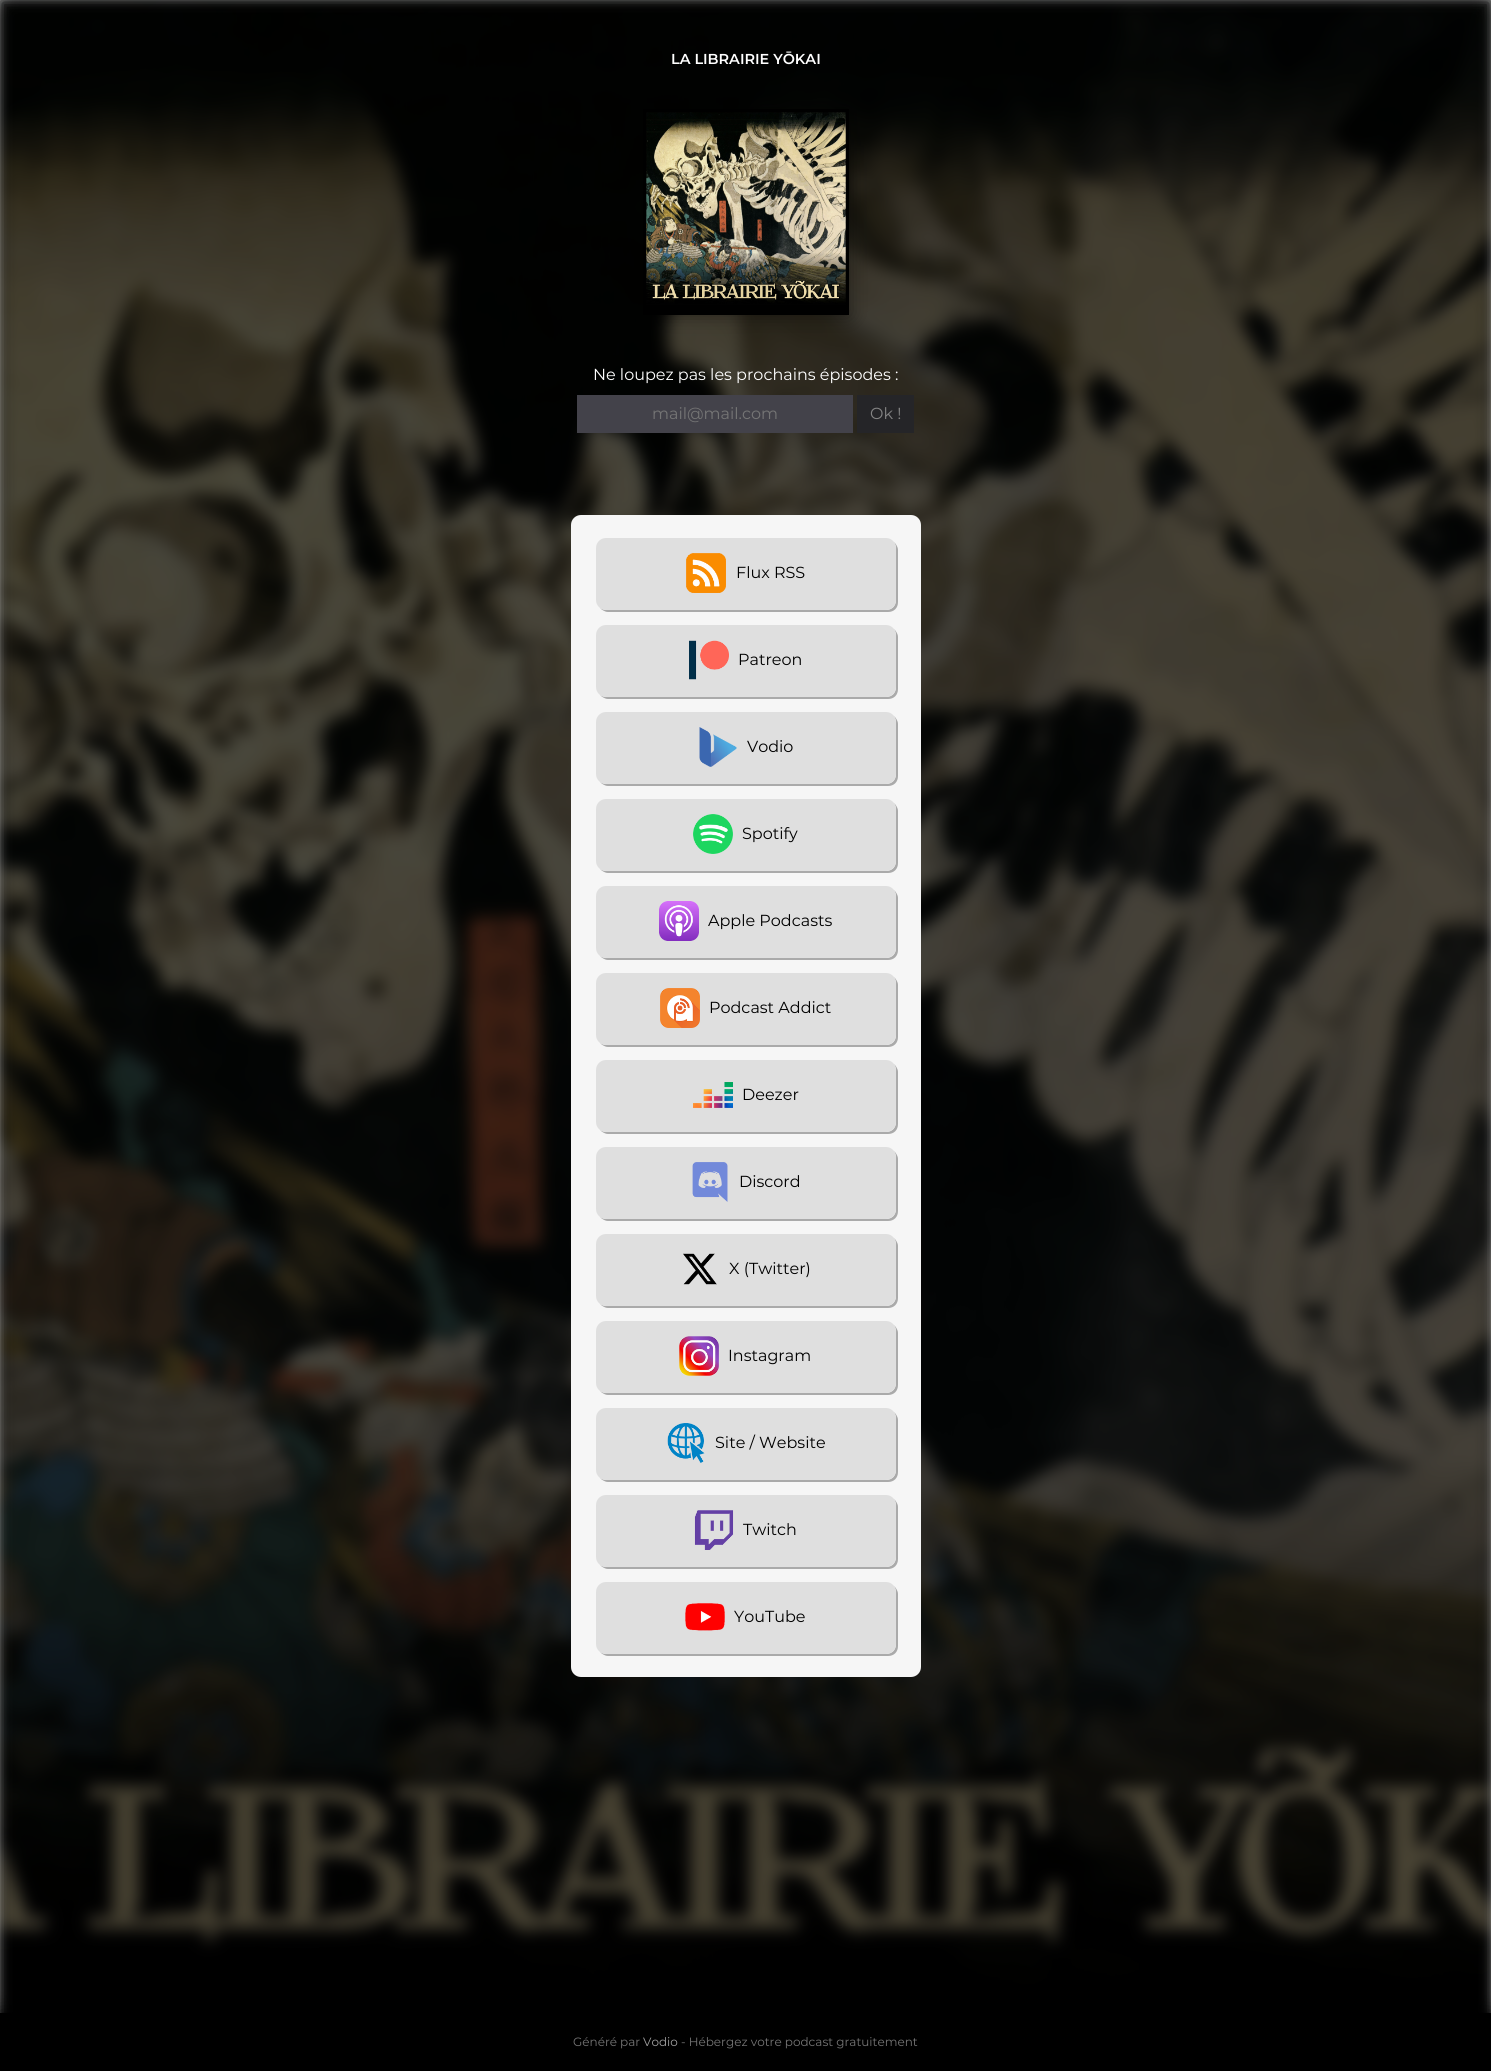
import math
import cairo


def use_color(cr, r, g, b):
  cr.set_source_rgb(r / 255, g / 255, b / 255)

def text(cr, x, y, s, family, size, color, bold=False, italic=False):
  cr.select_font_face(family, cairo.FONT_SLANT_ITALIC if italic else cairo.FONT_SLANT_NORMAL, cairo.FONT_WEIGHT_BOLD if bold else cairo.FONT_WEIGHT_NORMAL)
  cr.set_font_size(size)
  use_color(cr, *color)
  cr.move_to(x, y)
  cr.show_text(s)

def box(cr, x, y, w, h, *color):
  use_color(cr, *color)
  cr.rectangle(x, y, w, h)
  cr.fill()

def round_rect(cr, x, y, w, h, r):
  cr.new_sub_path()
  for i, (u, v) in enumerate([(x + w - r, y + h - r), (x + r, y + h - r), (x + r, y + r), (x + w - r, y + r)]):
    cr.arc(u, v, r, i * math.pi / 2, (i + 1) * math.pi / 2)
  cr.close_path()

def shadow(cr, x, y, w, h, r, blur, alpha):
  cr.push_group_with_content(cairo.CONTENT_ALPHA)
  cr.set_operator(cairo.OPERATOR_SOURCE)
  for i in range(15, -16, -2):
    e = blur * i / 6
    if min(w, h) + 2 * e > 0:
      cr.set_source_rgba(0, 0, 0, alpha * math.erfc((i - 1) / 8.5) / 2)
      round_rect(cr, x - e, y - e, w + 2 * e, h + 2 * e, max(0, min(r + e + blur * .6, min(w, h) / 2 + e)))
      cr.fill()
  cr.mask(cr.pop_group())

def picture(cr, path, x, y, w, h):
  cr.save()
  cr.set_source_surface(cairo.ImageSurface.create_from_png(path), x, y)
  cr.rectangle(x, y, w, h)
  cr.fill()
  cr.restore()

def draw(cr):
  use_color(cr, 255, 255, 255)
  cr.paint()
  use_color(cr, 0, 0, 0)
  shadow(cr, 0, 0, 1491, 2071, 0, 8, 1)
  picture(cr, "img_01.png", 0, 0, 1491, 2013)
  shadow(cr, 643, 109, 206, 206, 0, 10, 0.44)
  cr.rectangle(644.5, 110.5, 203, 203)
  use_color(cr, 0, 0, 0)
  cr.set_line_width(3)
  cr.stroke()
  picture(cr, "img_02.png", 646, 112, 200, 200)
  box(cr, 577, 395, 276, 38, 67, 66, 74)
  box(cr, 857, 395, 57, 38, 37, 37, 40)
  use_color(cr, 246, 246, 246)
  round_rect(cr, 571, 515, 350, 1162, 10)
  cr.fill()
  use_color(cr, 170, 170, 170)
  cr.new_path()
  cr.move_to(600, 608)
  cr.curve_to(602, 610, 605, 612, 608, 612)
  cr.line_to(888, 612)
  cr.curve_to(894, 612, 898, 608, 898, 602)
  cr.line_to(898, 550)
  cr.curve_to(898, 547, 896, 544, 894, 542)
  cr.curve_to(895, 544, 896, 546, 896, 548)
  cr.line_to(896, 600)
  cr.curve_to(896, 606, 892, 610, 886, 610)
  cr.line_to(606, 610)
  cr.curve_to(604, 610, 602, 609, 600, 608)
  cr.close_path()
  cr.fill()
  use_color(cr, 223, 223, 223)
  round_rect(cr, 596, 538, 300, 72, 10)
  cr.fill()
  picture(cr, "img_03.png", 686, 553, 40, 40)
  use_color(cr, 170, 170, 170)
  cr.new_path()
  cr.move_to(600, 695)
  cr.curve_to(602, 697, 605, 699, 608, 699)
  cr.line_to(888, 699)
  cr.curve_to(894, 699, 898, 695, 898, 689)
  cr.line_to(898, 637)
  cr.curve_to(898, 634, 896, 631, 894, 629)
  cr.curve_to(895, 631, 896, 633, 896, 635)
  cr.line_to(896, 687)
  cr.curve_to(896, 693, 892, 697, 886, 697)
  cr.line_to(606, 697)
  cr.curve_to(604, 697, 602, 696, 600, 695)
  cr.close_path()
  cr.fill()
  use_color(cr, 223, 223, 223)
  round_rect(cr, 596, 625, 300, 72, 10)
  cr.fill()
  picture(cr, "img_04.png", 689, 640, 40, 40)
  use_color(cr, 170, 170, 170)
  cr.new_path()
  cr.move_to(600, 782)
  cr.curve_to(602, 784, 605, 786, 608, 786)
  cr.line_to(888, 786)
  cr.curve_to(894, 786, 898, 782, 898, 776)
  cr.line_to(898, 724)
  cr.curve_to(898, 721, 896, 718, 894, 716)
  cr.curve_to(895, 718, 896, 720, 896, 722)
  cr.line_to(896, 774)
  cr.curve_to(896, 780, 892, 784, 886, 784)
  cr.line_to(606, 784)
  cr.curve_to(604, 784, 602, 783, 600, 782)
  cr.close_path()
  cr.fill()
  use_color(cr, 223, 223, 223)
  round_rect(cr, 596, 712, 300, 72, 10)
  cr.fill()
  picture(cr, "img_05.png", 699, 727, 38, 40)
  use_color(cr, 170, 170, 170)
  cr.new_path()
  cr.move_to(600, 869)
  cr.curve_to(602, 871, 605, 873, 608, 873)
  cr.line_to(888, 873)
  cr.curve_to(894, 873, 898, 869, 898, 863)
  cr.line_to(898, 811)
  cr.curve_to(898, 808, 896, 805, 894, 803)
  cr.curve_to(895, 805, 896, 807, 896, 809)
  cr.line_to(896, 861)
  cr.curve_to(896, 867, 892, 871, 886, 871)
  cr.line_to(606, 871)
  cr.curve_to(604, 871, 602, 870, 600, 869)
  cr.close_path()
  cr.fill()
  use_color(cr, 223, 223, 223)
  round_rect(cr, 596, 799, 300, 72, 10)
  cr.fill()
  picture(cr, "img_06.png", 693, 814, 40, 40)
  use_color(cr, 170, 170, 170)
  cr.new_path()
  cr.move_to(600, 956)
  cr.curve_to(602, 958, 605, 960, 608, 960)
  cr.line_to(888, 960)
  cr.curve_to(894, 960, 898, 956, 898, 950)
  cr.line_to(898, 898)
  cr.curve_to(898, 895, 896, 892, 894, 890)
  cr.curve_to(895, 892, 896, 894, 896, 896)
  cr.line_to(896, 948)
  cr.curve_to(896, 954, 892, 958, 886, 958)
  cr.line_to(606, 958)
  cr.curve_to(604, 958, 602, 957, 600, 956)
  cr.close_path()
  cr.fill()
  use_color(cr, 223, 223, 223)
  round_rect(cr, 596, 886, 300, 72, 10)
  cr.fill()
  picture(cr, "img_07.png", 659, 901, 40, 40)
  use_color(cr, 170, 170, 170)
  cr.new_path()
  cr.move_to(600, 1043)
  cr.curve_to(602, 1045, 605, 1047, 608, 1047)
  cr.line_to(888, 1047)
  cr.curve_to(894, 1047, 898, 1043, 898, 1037)
  cr.line_to(898, 985)
  cr.curve_to(898, 982, 896, 979, 894, 977)
  cr.curve_to(895, 979, 896, 981, 896, 983)
  cr.line_to(896, 1035)
  cr.curve_to(896, 1041, 892, 1045, 886, 1045)
  cr.line_to(606, 1045)
  cr.curve_to(604, 1045, 602, 1044, 600, 1043)
  cr.close_path()
  cr.fill()
  use_color(cr, 223, 223, 223)
  round_rect(cr, 596, 973, 300, 72, 10)
  cr.fill()
  picture(cr, "img_08.png", 660, 988, 40, 40)
  use_color(cr, 170, 170, 170)
  cr.new_path()
  cr.move_to(600, 1130)
  cr.curve_to(602, 1132, 605, 1134, 608, 1134)
  cr.line_to(888, 1134)
  cr.curve_to(894, 1134, 898, 1130, 898, 1124)
  cr.line_to(898, 1072)
  cr.curve_to(898, 1069, 896, 1066, 894, 1064)
  cr.curve_to(895, 1066, 896, 1068, 896, 1070)
  cr.line_to(896, 1122)
  cr.curve_to(896, 1128, 892, 1132, 886, 1132)
  cr.line_to(606, 1132)
  cr.curve_to(604, 1132, 602, 1131, 600, 1130)
  cr.close_path()
  cr.fill()
  use_color(cr, 223, 223, 223)
  round_rect(cr, 596, 1060, 300, 72, 10)
  cr.fill()
  picture(cr, "img_09.png", 693, 1082, 40, 26)
  use_color(cr, 170, 170, 170)
  cr.new_path()
  cr.move_to(600, 1217)
  cr.curve_to(602, 1219, 605, 1221, 608, 1221)
  cr.line_to(888, 1221)
  cr.curve_to(894, 1221, 898, 1217, 898, 1211)
  cr.line_to(898, 1159)
  cr.curve_to(898, 1156, 896, 1153, 894, 1151)
  cr.curve_to(895, 1153, 896, 1155, 896, 1157)
  cr.line_to(896, 1209)
  cr.curve_to(896, 1215, 892, 1219, 886, 1219)
  cr.line_to(606, 1219)
  cr.curve_to(604, 1219, 602, 1218, 600, 1217)
  cr.close_path()
  cr.fill()
  use_color(cr, 223, 223, 223)
  round_rect(cr, 596, 1147, 300, 72, 10)
  cr.fill()
  picture(cr, "img_10.png", 692, 1162, 36, 40)
  use_color(cr, 170, 170, 170)
  cr.new_path()
  cr.move_to(600, 1304)
  cr.curve_to(602, 1306, 605, 1308, 608, 1308)
  cr.line_to(888, 1308)
  cr.curve_to(894, 1308, 898, 1304, 898, 1298)
  cr.line_to(898, 1246)
  cr.curve_to(898, 1243, 896, 1240, 894, 1238)
  cr.curve_to(895, 1240, 896, 1242, 896, 1244)
  cr.line_to(896, 1296)
  cr.curve_to(896, 1302, 892, 1306, 886, 1306)
  cr.line_to(606, 1306)
  cr.curve_to(604, 1306, 602, 1305, 600, 1304)
  cr.close_path()
  cr.fill()
  use_color(cr, 223, 223, 223)
  round_rect(cr, 596, 1234, 300, 72, 10)
  cr.fill()
  picture(cr, "img_11.png", 683, 1253, 34, 32)
  use_color(cr, 170, 170, 170)
  cr.new_path()
  cr.move_to(600, 1391)
  cr.curve_to(602, 1393, 605, 1395, 608, 1395)
  cr.line_to(888, 1395)
  cr.curve_to(894, 1395, 898, 1391, 898, 1385)
  cr.line_to(898, 1333)
  cr.curve_to(898, 1330, 896, 1327, 894, 1325)
  cr.curve_to(895, 1327, 896, 1329, 896, 1331)
  cr.line_to(896, 1383)
  cr.curve_to(896, 1389, 892, 1393, 886, 1393)
  cr.line_to(606, 1393)
  cr.curve_to(604, 1393, 602, 1392, 600, 1391)
  cr.close_path()
  cr.fill()
  use_color(cr, 223, 223, 223)
  round_rect(cr, 596, 1321, 300, 72, 10)
  cr.fill()
  picture(cr, "img_12.png", 679, 1336, 40, 40)
  use_color(cr, 170, 170, 170)
  cr.new_path()
  cr.move_to(600, 1478)
  cr.curve_to(602, 1480, 605, 1482, 608, 1482)
  cr.line_to(888, 1482)
  cr.curve_to(894, 1482, 898, 1478, 898, 1472)
  cr.line_to(898, 1420)
  cr.curve_to(898, 1417, 896, 1414, 894, 1412)
  cr.curve_to(895, 1414, 896, 1416, 896, 1418)
  cr.line_to(896, 1470)
  cr.curve_to(896, 1476, 892, 1480, 886, 1480)
  cr.line_to(606, 1480)
  cr.curve_to(604, 1480, 602, 1479, 600, 1478)
  cr.close_path()
  cr.fill()
  use_color(cr, 223, 223, 223)
  round_rect(cr, 596, 1408, 300, 72, 10)
  cr.fill()
  picture(cr, "img_13.png", 667, 1423, 38, 40)
  use_color(cr, 170, 170, 170)
  cr.new_path()
  cr.move_to(600, 1565)
  cr.curve_to(602, 1567, 605, 1569, 608, 1569)
  cr.line_to(888, 1569)
  cr.curve_to(894, 1569, 898, 1565, 898, 1559)
  cr.line_to(898, 1507)
  cr.curve_to(898, 1504, 896, 1501, 894, 1499)
  cr.curve_to(895, 1501, 896, 1503, 896, 1505)
  cr.line_to(896, 1557)
  cr.curve_to(896, 1563, 892, 1567, 886, 1567)
  cr.line_to(606, 1567)
  cr.curve_to(604, 1567, 602, 1566, 600, 1565)
  cr.close_path()
  cr.fill()
  use_color(cr, 223, 223, 223)
  round_rect(cr, 596, 1495, 300, 72, 10)
  cr.fill()
  picture(cr, "img_14.png", 694, 1510, 40, 40)
  use_color(cr, 170, 170, 170)
  cr.new_path()
  cr.move_to(600, 1652)
  cr.curve_to(602, 1654, 605, 1656, 608, 1656)
  cr.line_to(888, 1656)
  cr.curve_to(894, 1656, 898, 1652, 898, 1646)
  cr.line_to(898, 1594)
  cr.curve_to(898, 1591, 896, 1588, 894, 1586)
  cr.curve_to(895, 1588, 896, 1590, 896, 1592)
  cr.line_to(896, 1644)
  cr.curve_to(896, 1650, 892, 1654, 886, 1654)
  cr.line_to(606, 1654)
  cr.curve_to(604, 1654, 602, 1653, 600, 1652)
  cr.close_path()
  cr.fill()
  use_color(cr, 223, 223, 223)
  round_rect(cr, 596, 1582, 300, 72, 10)
  cr.fill()
  picture(cr, "img_15.png", 685, 1603, 40, 28)
  use_color(cr, 0, 0, 0)
  shadow(cr, 0, 2013, 1491, 58, 0, 10, 1)
  box(cr, 0, 2013, 1491, 58, 0, 0, 0)
  text(cr, 671, 64, "LA LIBRAIRIE YŌKAI", "Montserrat SemiBold", 14.4, (255, 255, 255))
  text(cr, 593, 380, "Ne loupez pas les prochains épisodes :", "Montserrat", 16, (255, 255, 255))
  text(cr, 652, 419, "mail@mail.com", "Montserrat", 16, (117, 117, 117))
  text(cr, 870, 419, "Ok !", "Montserrat", 16, (132, 132, 132))
  text(cr, 736, 578, "Flux RSS", "Montserrat", 16, (0, 0, 0))
  text(cr, 738, 665, "Patreon", "Montserrat", 16, (0, 0, 0))
  text(cr, 747, 752, "Vodio", "Montserrat", 16, (0, 0, 0))
  text(cr, 742, 839, "Spotify", "Montserrat", 16, (0, 0, 0))
  text(cr, 708, 926, "Apple Podcasts", "Montserrat", 16, (0, 0, 0))
  text(cr, 709, 1013, "Podcast Addict", "Montserrat", 16, (0, 0, 0))
  text(cr, 742, 1100, "Deezer", "Montserrat", 16, (0, 0, 0))
  text(cr, 739, 1187, "Discord", "Montserrat", 16, (0, 0, 0))
  text(cr, 729, 1274, "X (Twitter)", "Montserrat", 16, (0, 0, 0))
  text(cr, 728, 1361, "Instagram", "Montserrat", 16, (0, 0, 0))
  text(cr, 715, 1448, "Site / Website", "Montserrat", 16, (0, 0, 0))
  text(cr, 743, 1535, "Twitch", "Montserrat", 16, (0, 0, 0))
  text(cr, 734, 1622, "YouTube", "Montserrat", 16, (0, 0, 0))
  text(cr, 573, 2046, "Généré par", "Montserrat", 12, (117, 117, 117))
  text(cr, 643, 2046, "Vodio", "Montserrat", 12, (160, 160, 160))
  text(cr, 681, 2046, "- Hébergez votre podcast gratuitement", "Montserrat", 12, (117, 117, 117))


surface = cairo.ImageSurface(cairo.FORMAT_RGB24, 1491, 2071)
cr = cairo.Context(surface)
options = cairo.FontOptions()
options.set_hint_metrics(cairo.HINT_METRICS_OFF)
options.set_hint_style(cairo.HINT_STYLE_NONE)
cr.set_font_options(options)
cr.set_miter_limit(4)
draw(cr)
surface.write_to_png("out.png")
